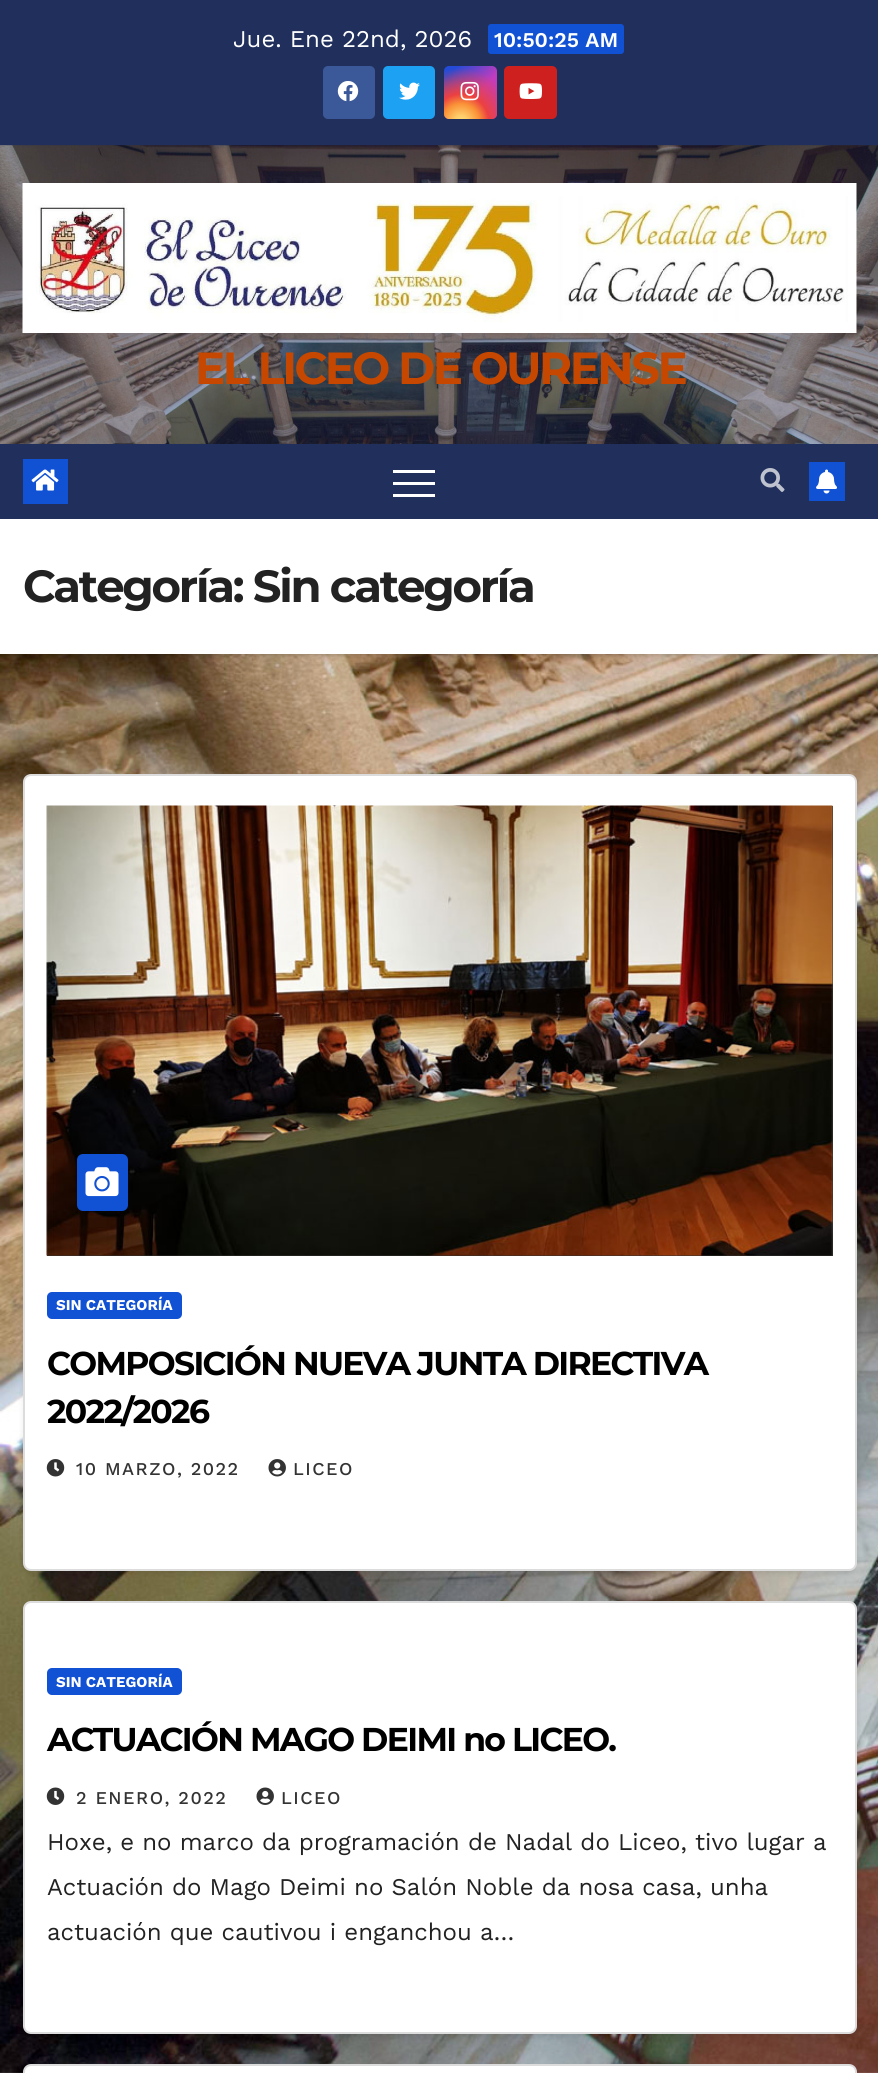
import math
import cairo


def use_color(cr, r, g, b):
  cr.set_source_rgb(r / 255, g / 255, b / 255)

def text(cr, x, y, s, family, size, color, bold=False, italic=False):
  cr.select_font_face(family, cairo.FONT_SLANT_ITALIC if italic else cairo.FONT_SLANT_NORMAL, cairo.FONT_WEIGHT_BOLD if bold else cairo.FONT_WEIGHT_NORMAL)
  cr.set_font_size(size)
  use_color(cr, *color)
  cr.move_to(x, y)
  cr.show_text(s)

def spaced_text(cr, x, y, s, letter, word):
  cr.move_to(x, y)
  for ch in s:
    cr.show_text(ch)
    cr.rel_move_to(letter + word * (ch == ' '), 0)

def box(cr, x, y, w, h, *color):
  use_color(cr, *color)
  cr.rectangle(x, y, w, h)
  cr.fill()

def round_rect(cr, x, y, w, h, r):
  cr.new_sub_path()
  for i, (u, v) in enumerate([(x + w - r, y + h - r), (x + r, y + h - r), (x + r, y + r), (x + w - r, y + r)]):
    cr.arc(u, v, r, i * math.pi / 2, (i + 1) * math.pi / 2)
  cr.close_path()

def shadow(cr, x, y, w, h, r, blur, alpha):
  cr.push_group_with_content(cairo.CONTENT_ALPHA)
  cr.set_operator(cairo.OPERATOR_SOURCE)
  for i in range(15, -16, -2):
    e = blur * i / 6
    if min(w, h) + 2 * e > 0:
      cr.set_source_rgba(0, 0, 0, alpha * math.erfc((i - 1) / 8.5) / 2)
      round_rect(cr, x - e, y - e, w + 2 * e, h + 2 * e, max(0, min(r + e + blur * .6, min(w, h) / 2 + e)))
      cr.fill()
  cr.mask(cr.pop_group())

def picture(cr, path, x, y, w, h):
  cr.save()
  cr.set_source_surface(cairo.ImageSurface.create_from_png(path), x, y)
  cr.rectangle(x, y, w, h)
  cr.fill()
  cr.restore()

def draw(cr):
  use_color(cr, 255, 255, 255)
  cr.paint()
  picture(cr, "img_01.png", 0, 654, 878, 1419)
  box(cr, 0, 0, 878, 146, 32, 47, 91)
  use_color(cr, 17, 81, 211)
  round_rect(cr, 488, 24, 136, 30, 3)
  cr.fill()
  use_color(cr, 59, 89, 152)
  round_rect(cr, 323, 66, 52, 53, 5)
  cr.fill()
  picture(cr, "img_02.png", 337, 81, 22, 21)
  use_color(cr, 29, 161, 242)
  round_rect(cr, 383, 66, 52, 53, 5)
  cr.fill()
  picture(cr, "img_03.png", 399, 82, 21, 18)
  gradient = cairo.LinearGradient(444, 66, 497, 119)
  gradient.add_color_stop_rgba(0.12, 0.137, 0.294, 0.843, 1)
  gradient.add_color_stop_rgba(0.58, 0.765, 0.235, 0.745, 1)
  cr.set_source(gradient)
  round_rect(cr, 444, 66, 53, 53, 5)
  cr.fill()
  gradient = cairo.RadialGradient(461, 122, 0, 461, 122, 66)
  gradient.add_color_stop_rgba(0, 1, 0.882, 0.49, 1)
  gradient.add_color_stop_rgba(0.1, 1, 0.804, 0.412, 1)
  gradient.add_color_stop_rgba(0.28, 0.98, 0.569, 0.216, 1)
  gradient.add_color_stop_rgba(0.42, 0.922, 0.255, 0.255, 1)
  gradient.add_color_stop_rgba(0.82, 0.922, 0.255, 0.255, 0)
  cr.set_source(gradient)
  round_rect(cr, 444, 66, 53, 53, 5)
  cr.fill()
  picture(cr, "img_04.png", 460, 81, 19, 20)
  use_color(cr, 205, 32, 31)
  round_rect(cr, 504, 66, 53, 53, 5)
  cr.fill()
  picture(cr, "img_05.png", 519, 83, 23, 16)
  picture(cr, "img_06.png", 0, 145, 878, 299)
  picture(cr, "img_07.png", 22, 183, 835, 150)
  use_color(cr, 0, 0, 0)
  shadow(cr, 0, 521, 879, 135, 0, 2, 0.15)
  box(cr, 0, 444, 878, 75, 32, 47, 91)
  box(cr, 23, 459, 45, 45, 17, 81, 211)
  picture(cr, "img_08.png", 31, 469, 28, 22)
  box(cr, 393, 470, 42, 3, 255, 255, 255)
  box(cr, 393, 482, 42, 3, 255, 255, 255)
  box(cr, 393, 494, 42, 3, 255, 255, 255)
  picture(cr, "img_09.png", 760, 468, 25, 24)
  box(cr, 809, 462, 36, 39, 17, 81, 211)
  picture(cr, "img_10.png", 816, 469, 21, 25)
  box(cr, 0, 519, 878, 135, 255, 255, 255)
  use_color(cr, 0, 0, 0)
  shadow(cr, 23, 777, 834, 797, 8, 3, 0.08)
  use_color(cr, 255, 255, 255)
  round_rect(cr, 24, 775, 832, 795, 7)
  cr.fill_preserve()
  use_color(cr, 221, 220, 220)
  cr.stroke()
  box(cr, 47, 806, 786, 450, 51, 51, 51)
  picture(cr, "img_11.png", 46, 805, 787, 451)
  use_color(cr, 17, 81, 211)
  round_rect(cr, 77, 1154, 51, 57, 6)
  cr.fill()
  picture(cr, "img_12.png", 85, 1167, 34, 30)
  round_rect(cr, 47, 1292, 135, 27, 5)
  cr.fill()
  picture(cr, "img_13.png", 46, 1459, 19, 18)
  picture(cr, "img_14.png", 268, 1459, 18, 18)
  use_color(cr, 0, 0, 0)
  shadow(cr, 23, 1604, 834, 433, 8, 3, 0.08)
  use_color(cr, 255, 255, 255)
  round_rect(cr, 24, 1602, 832, 431, 7)
  cr.fill_preserve()
  use_color(cr, 221, 220, 220)
  cr.stroke()
  use_color(cr, 17, 81, 211)
  round_rect(cr, 47, 1668, 135, 27, 5)
  cr.fill()
  picture(cr, "img_15.png", 46, 1787, 19, 18)
  picture(cr, "img_16.png", 256, 1787, 18, 18)
  use_color(cr, 0, 0, 0)
  shadow(cr, 23, 2067, 834, 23, 8, 3, 0.08)
  use_color(cr, 255, 255, 255)
  round_rect(cr, 24, 2065, 832, 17, 7)
  cr.fill_preserve()
  use_color(cr, 221, 220, 220)
  cr.stroke()
  text(cr, 233, 47, "Jue. Ene 22nd, 2026", "Work Sans", 24, (255, 255, 255))
  text(cr, 494, 47, "10:50:25 AM", "Work Sans SemiBold", 21, (255, 255, 255))
  cr.select_font_face("Montserrat", cairo.FONT_SLANT_NORMAL, cairo.FONT_WEIGHT_BOLD)
  cr.set_font_size(45)
  use_color(cr, 198, 72, 0)
  spaced_text(cr, 195, 384, "EL LICEO DE OURENSE", -2.5, 0)
  use_color(cr, 34, 34, 34)
  spaced_text(cr, 23, 602, "Categoría: Sin categoría", -2.25, 0)
  text(cr, 56, 1310, "SIN CATEGORÍA", "Work Sans", 15, (255, 255, 255), bold=True)
  cr.select_font_face("Montserrat", cairo.FONT_SLANT_NORMAL, cairo.FONT_WEIGHT_BOLD)
  cr.set_font_size(33)
  use_color(cr, 0, 0, 0)
  spaced_text(cr, 47, 1375, "COMPOSICIÓN NUEVA JUNTA DIRECTIVA", -1.65, 0)
  spaced_text(cr, 47, 1423, "2022/2026", -1.65, 0)
  cr.select_font_face("Work Sans Medium")
  cr.set_font_size(18)
  use_color(cr, 51, 51, 51)
  spaced_text(cr, 76, 1475, "10 MARZO, 2022", 1.5, 0)
  spaced_text(cr, 293, 1475, "LICEO", 1.5, 0)
  text(cr, 56, 1687, "SIN CATEGORÍA", "Work Sans", 15, (255, 255, 255), bold=True)
  cr.select_font_face("Montserrat", cairo.FONT_SLANT_NORMAL, cairo.FONT_WEIGHT_BOLD)
  cr.set_font_size(33)
  use_color(cr, 0, 0, 0)
  spaced_text(cr, 47, 1751, "ACTUACIÓN MAGO DEIMI no LICEO.", -1.65, 0)
  cr.select_font_face("Work Sans Medium")
  cr.set_font_size(18)
  use_color(cr, 51, 51, 51)
  spaced_text(cr, 76, 1804, "2 ENERO, 2022", 1.5, 0)
  spaced_text(cr, 281, 1804, "LICEO", 1.5, 0)
  text(cr, 47, 1850, "Hoxe, e no marco da programación de Nadal do Liceo, tivo lugar a", "Work Sans", 24, (34, 34, 34))
  text(cr, 47, 1895, "Actuación do Mago Deimi no Salón Noble da nosa casa, unha", "Work Sans", 24, (34, 34, 34))
  text(cr, 47, 1940, "actuación que cautivou i enganchou a…", "Work Sans", 24, (34, 34, 34))


surface = cairo.ImageSurface(cairo.FORMAT_RGB24, 878, 2073)
cr = cairo.Context(surface)
options = cairo.FontOptions()
options.set_hint_metrics(cairo.HINT_METRICS_OFF)
options.set_hint_style(cairo.HINT_STYLE_NONE)
cr.set_font_options(options)
cr.set_miter_limit(4)
draw(cr)
surface.write_to_png("out.png")
